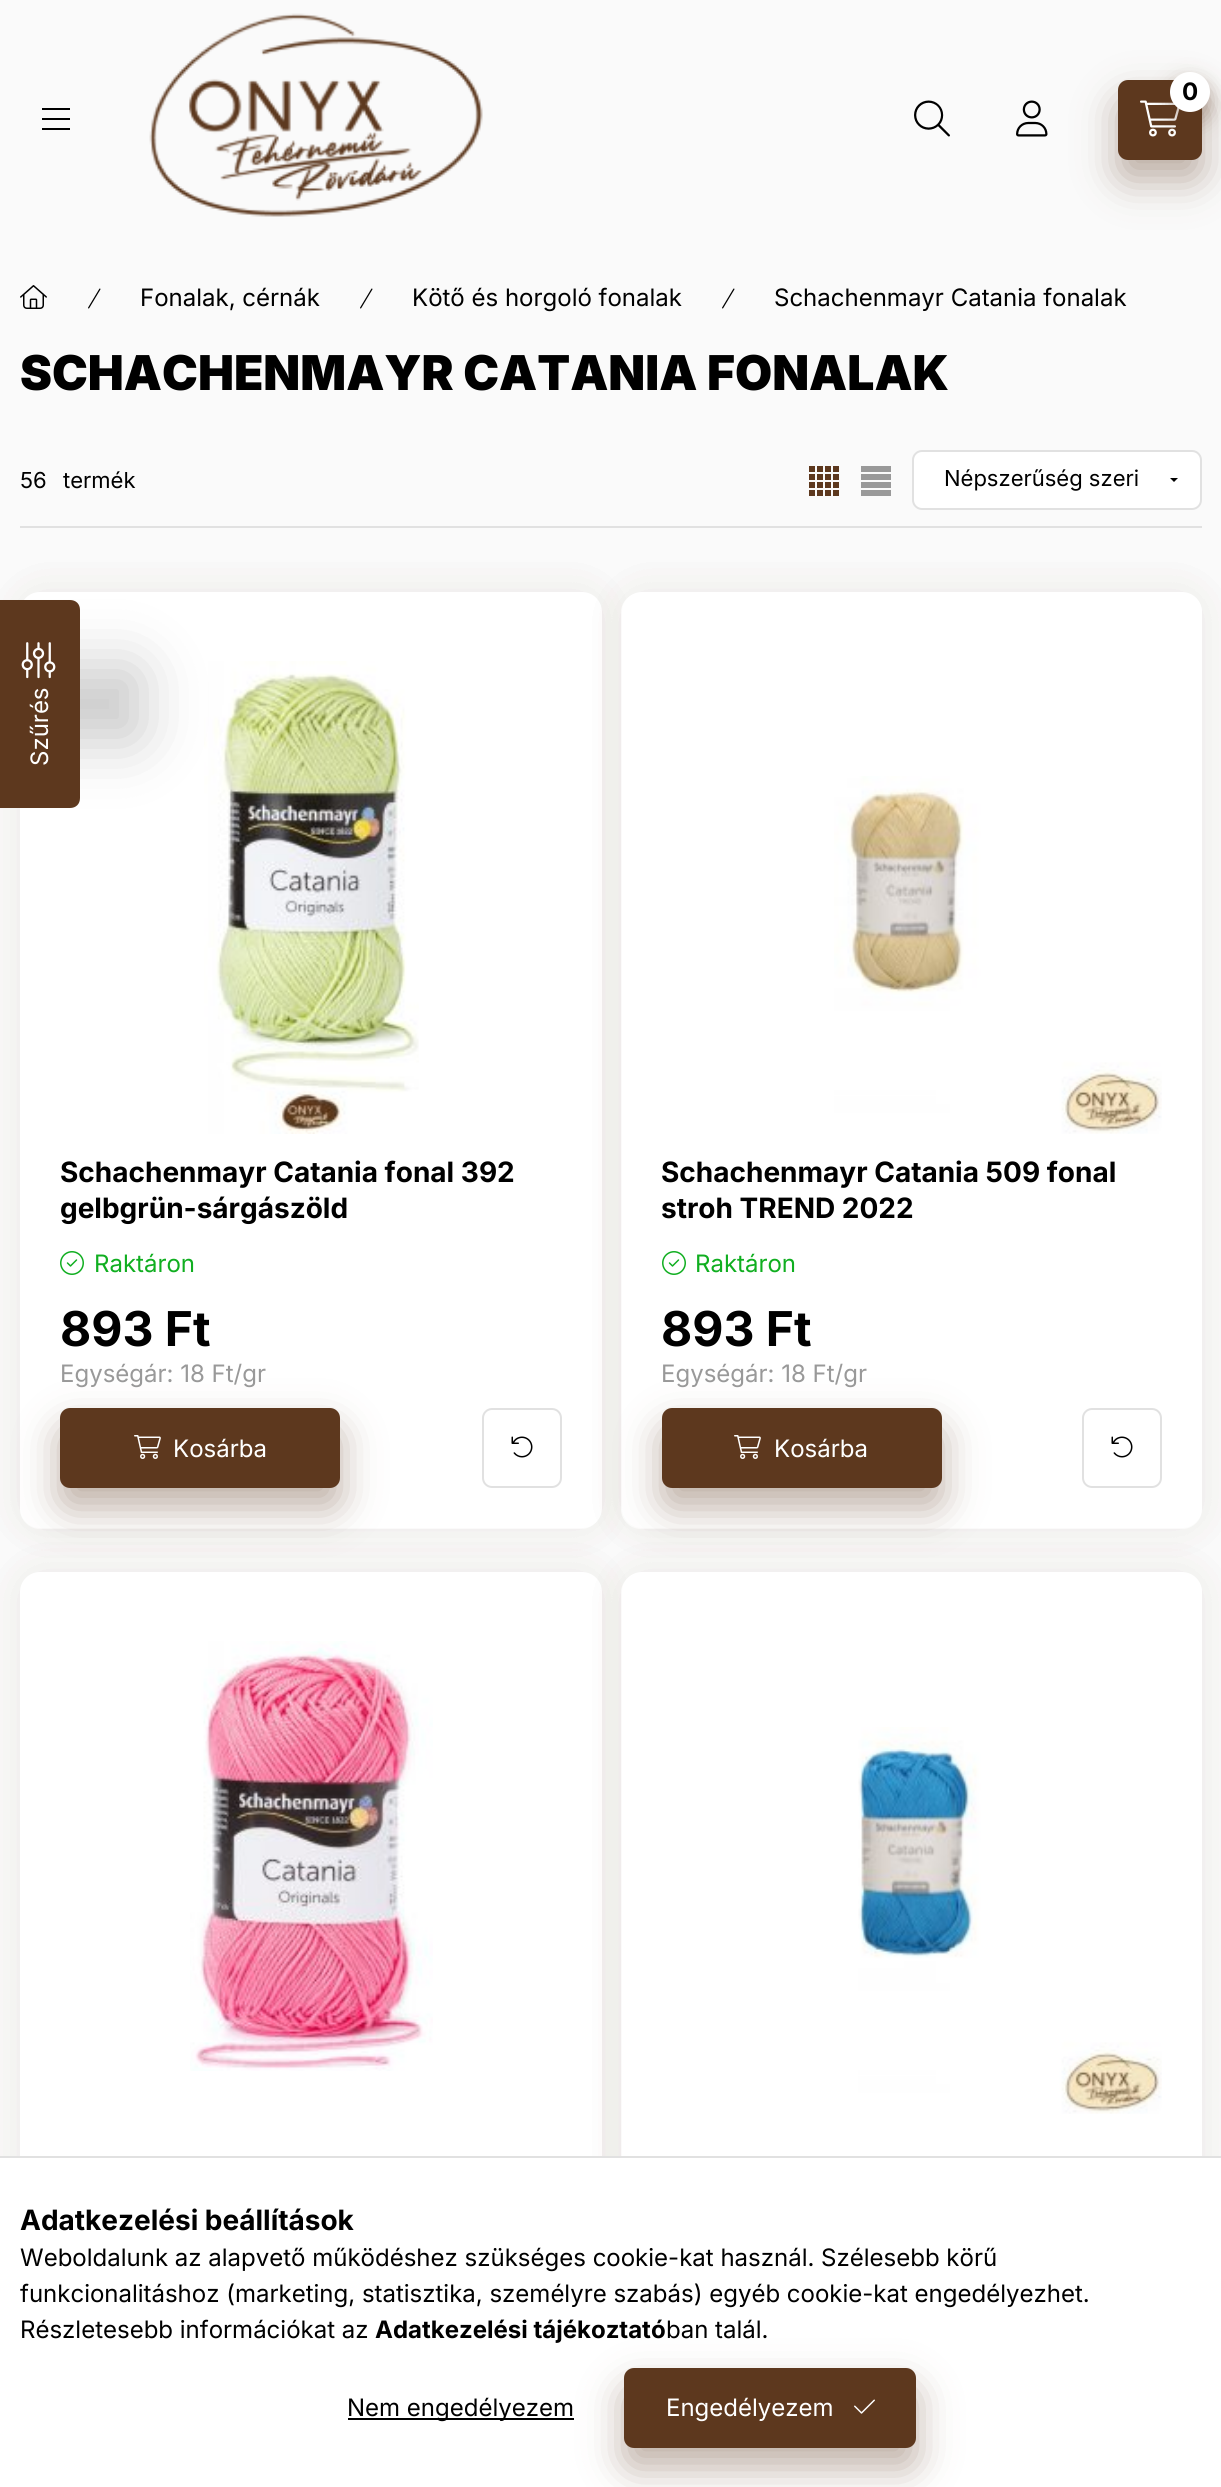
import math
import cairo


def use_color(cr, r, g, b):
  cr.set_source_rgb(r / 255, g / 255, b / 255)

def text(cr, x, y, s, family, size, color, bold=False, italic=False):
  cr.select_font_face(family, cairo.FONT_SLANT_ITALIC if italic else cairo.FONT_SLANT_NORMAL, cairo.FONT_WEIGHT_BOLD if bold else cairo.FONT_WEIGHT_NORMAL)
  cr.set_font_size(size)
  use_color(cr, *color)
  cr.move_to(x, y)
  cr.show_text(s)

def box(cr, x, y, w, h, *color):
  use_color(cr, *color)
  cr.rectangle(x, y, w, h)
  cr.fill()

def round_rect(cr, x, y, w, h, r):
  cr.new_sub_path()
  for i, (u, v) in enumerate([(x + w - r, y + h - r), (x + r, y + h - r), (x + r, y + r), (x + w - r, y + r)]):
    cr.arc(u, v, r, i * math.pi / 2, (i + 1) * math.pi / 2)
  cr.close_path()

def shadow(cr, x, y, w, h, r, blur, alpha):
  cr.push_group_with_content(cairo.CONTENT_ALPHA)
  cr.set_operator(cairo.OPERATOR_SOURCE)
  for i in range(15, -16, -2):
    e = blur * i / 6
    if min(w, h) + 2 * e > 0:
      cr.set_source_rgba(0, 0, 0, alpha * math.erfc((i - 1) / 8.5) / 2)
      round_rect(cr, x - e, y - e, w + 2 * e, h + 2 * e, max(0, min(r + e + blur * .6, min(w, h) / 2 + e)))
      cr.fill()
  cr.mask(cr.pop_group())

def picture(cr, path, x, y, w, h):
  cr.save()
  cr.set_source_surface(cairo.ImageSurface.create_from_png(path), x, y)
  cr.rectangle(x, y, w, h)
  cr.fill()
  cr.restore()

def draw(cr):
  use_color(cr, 250, 250, 250)
  cr.paint()
  box(cr, 42, 108, 28, 2, 0, 0, 0)
  box(cr, 42, 118, 28, 2, 0, 0, 0)
  box(cr, 42, 128, 28, 2, 0, 0, 0)
  picture(cr, "img_01.png", 149, 13, 334, 204)
  use_color(cr, 93, 56, 30)
  shadow(cr, 1118, 100, 84, 80, 10, 20, 0.4)
  use_color(cr, 93, 56, 30)
  round_rect(cr, 1118, 80, 84, 80, 10)
  cr.fill()
  picture(cr, "img_02.png", 1140, 100, 40, 37)
  use_color(cr, 93, 56, 30)
  shadow(cr, 1170, 82, 40, 40, 20, 10, 0.4)
  use_color(cr, 255, 255, 255)
  cr.arc(1190, 92, 20, 0, 2 * math.pi)
  cr.fill()
  picture(cr, "img_03.png", 914, 100, 36, 37)
  picture(cr, "img_04.png", 1016, 100, 32, 37)
  picture(cr, "img_05.png", 20, 285, 27, 24)
  picture(cr, "img_06.png", 88, 288, 13, 21)
  picture(cr, "img_06.png", 360, 288, 13, 21)
  picture(cr, "img_06.png", 722, 288, 13, 21)
  box(cr, 20, 526, 1182, 2, 225, 225, 225)
  picture(cr, "img_07.png", 809, 466, 30, 30)
  picture(cr, "img_08.png", 861, 466, 30, 30)
  use_color(cr, 255, 255, 255)
  round_rect(cr, 913, 451, 288, 58, 9)
  cr.fill_preserve()
  use_color(cr, 225, 225, 225)
  cr.stroke()
  use_color(cr, 0, 0, 0)
  cr.new_path()
  cr.move_to(1170, 478)
  cr.line_to(1178, 478)
  cr.line_to(1174, 482)
  cr.close_path()
  cr.fill()
  use_color(cr, 93, 56, 30)
  shadow(cr, 20, 592, 582, 936, 20, 20, 0.05)
  use_color(cr, 255, 255, 255)
  cr.new_path()
  cr.move_to(581, 593)
  cr.line_to(40, 593)
  cr.curve_to(29, 593, 20, 601, 20, 613)
  cr.line_to(20, 1509)
  cr.curve_to(20, 1520, 29, 1529, 40, 1529)
  cr.line_to(581, 1529)
  cr.curve_to(592, 1529, 601, 1520, 601, 1509)
  cr.line_to(601, 613)
  cr.curve_to(601, 601, 592, 593, 581, 593)
  cr.close_path()
  cr.fill()
  use_color(cr, 93, 56, 30)
  shadow(cr, 20, 592, 582, 936, 20, 20, 0.05)
  use_color(cr, 255, 255, 255)
  round_rect(cr, 20, 592, 582, 936, 20)
  cr.fill()
  picture(cr, "img_09.png", 204, 661, 215, 473)
  picture(cr, "img_10.png", 60, 1251, 24, 24)
  use_color(cr, 93, 56, 30)
  shadow(cr, 60, 1428, 280, 80, 10, 20, 0.4)
  use_color(cr, 93, 56, 30)
  round_rect(cr, 60, 1408, 280, 80, 10)
  cr.fill()
  picture(cr, "img_11.png", 134, 1435, 27, 24)
  round_rect(cr, 483, 1409, 78, 78, 9)
  use_color(cr, 225, 225, 225)
  cr.stroke()
  picture(cr, "img_12.png", 511, 1436, 22, 22)
  use_color(cr, 93, 56, 30)
  shadow(cr, 622, 592, 580, 936, 20, 20, 0.05)
  use_color(cr, 255, 255, 255)
  cr.new_path()
  cr.move_to(1182, 593)
  cr.line_to(641, 593)
  cr.curve_to(630, 593, 621, 601, 621, 613)
  cr.line_to(621, 1509)
  cr.curve_to(621, 1520, 630, 1529, 641, 1529)
  cr.line_to(1182, 1529)
  cr.curve_to(1193, 1529, 1202, 1520, 1202, 1509)
  cr.line_to(1202, 613)
  cr.curve_to(1202, 601, 1193, 593, 1182, 593)
  cr.close_path()
  cr.fill()
  use_color(cr, 93, 56, 30)
  shadow(cr, 622, 592, 580, 936, 20, 20, 0.05)
  use_color(cr, 255, 255, 255)
  round_rect(cr, 622, 592, 580, 936, 20)
  cr.fill()
  picture(cr, "img_13.png", 834, 776, 328, 358)
  picture(cr, "img_10.png", 662, 1251, 24, 24)
  use_color(cr, 93, 56, 30)
  shadow(cr, 662, 1428, 280, 80, 10, 20, 0.4)
  use_color(cr, 93, 56, 30)
  round_rect(cr, 662, 1408, 280, 80, 10)
  cr.fill()
  picture(cr, "img_11.png", 734, 1435, 27, 24)
  round_rect(cr, 1083, 1409, 78, 78, 9)
  use_color(cr, 225, 225, 225)
  cr.stroke()
  picture(cr, "img_12.png", 1111, 1436, 22, 22)
  use_color(cr, 93, 56, 30)
  shadow(cr, 20, 1572, 582, 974, 20, 20, 0.05)
  shadow(cr, 20, 1572, 582, 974, 20, 20, 0.05)
  use_color(cr, 255, 255, 255)
  round_rect(cr, 20, 1572, 582, 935, 20)
  cr.fill()
  picture(cr, "img_14.png", 190, 1641, 243, 430)
  use_color(cr, 93, 56, 30)
  shadow(cr, 622, 1572, 580, 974, 20, 20, 0.05)
  use_color(cr, 255, 255, 255)
  cr.new_path()
  cr.move_to(1182, 1573)
  cr.line_to(641, 1573)
  cr.curve_to(630, 1573, 621, 1582, 621, 1593)
  cr.line_to(621, 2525)
  cr.curve_to(621, 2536, 630, 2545, 641, 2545)
  cr.line_to(1182, 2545)
  cr.curve_to(1193, 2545, 1202, 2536, 1202, 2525)
  cr.line_to(1202, 1593)
  cr.curve_to(1202, 1582, 1193, 1573, 1182, 1573)
  cr.close_path()
  cr.fill()
  use_color(cr, 93, 56, 30)
  shadow(cr, 622, 1572, 580, 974, 20, 20, 0.05)
  use_color(cr, 255, 255, 255)
  round_rect(cr, 622, 1572, 580, 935, 20)
  cr.fill()
  picture(cr, "img_15.png", 858, 1727, 304, 387)
  use_color(cr, 0, 0, 0)
  shadow(cr, -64, 664, 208, 80, 10, 30, 0.2)
  use_color(cr, 93, 56, 30)
  cr.new_path()
  cr.move_to(0, 808)
  cr.line_to(0, 600)
  cr.line_to(70, 600)
  cr.curve_to(76, 600, 80, 604, 80, 610)
  cr.line_to(80, 798)
  cr.curve_to(80, 804, 76, 808, 70, 808)
  cr.close_path()
  cr.fill()
  picture(cr, "img_16.png", 21, 642, 35, 37)
  box(cr, 0, 2158, 1221, 329, 255, 255, 255)
  box(cr, 0, 2156, 1221, 2, 225, 225, 225)
  box(cr, 348, 2418, 226, 2, 0, 0, 0)
  use_color(cr, 93, 56, 30)
  shadow(cr, 624, 2388, 292, 80, 10, 20, 0.4)
  use_color(cr, 93, 56, 30)
  round_rect(cr, 625, 2369, 290, 78, 9)
  cr.fill_preserve()
  cr.stroke()
  picture(cr, "img_17.png", 854, 2399, 21, 15)
  text(cr, 1182, 100, "0", "Inter", 24, (0, 0, 0), bold=True)
  text(cr, 140, 306, "Fonalak, cérnák", "Inter", 24, (0, 0, 0))
  text(cr, 412, 306, "Kötő és horgoló fonalak", "Inter", 24, (0, 0, 0))
  text(cr, 774, 306, "Schachenmayr Catania fonalak", "Inter", 24, (0, 0, 0))
  text(cr, 20, 390, "SCHACHENMAYR CATANIA FONALAK", "Inter Black", 48, (0, 0, 0))
  text(cr, 20, 488, "56", "Inter", 22, (0, 0, 0))
  text(cr, 63, 488, "termék", "Inter", 22, (0, 0, 0))
  text(cr, 944, 486, "Népszerűség szeri", "Inter", 22, (0, 0, 0))
  text(cr, 60, 1182, "Schachenmayr Catania fonal 392", "Inter", 28, (0, 0, 0), bold=True)
  text(cr, 60, 1218, "gelbgrün-sárgászöld", "Inter", 28, (0, 0, 0), bold=True)
  text(cr, 94, 1272, "Raktáron", "Inter", 24, (16, 174, 32))
  text(cr, 60, 1346, "893 Ft", "Inter", 48, (0, 0, 0), bold=True)
  text(cr, 60, 1382, "Egységár: 18 Ft/gr", "Inter", 24, (153, 153, 153))
  text(cr, 173, 1457, "Kosárba", "Inter", 24, (255, 255, 255))
  text(cr, 661, 1182, "Schachenmayr Catania 509 fonal", "Inter", 28, (0, 0, 0), bold=True)
  text(cr, 661, 1218, "stroh TREND 2022", "Inter", 28, (0, 0, 0), bold=True)
  text(cr, 695, 1272, "Raktáron", "Inter", 24, (16, 174, 32))
  text(cr, 661, 1346, "893 Ft", "Inter", 48, (0, 0, 0), bold=True)
  text(cr, 661, 1382, "Egységár: 18 Ft/gr", "Inter", 24, (153, 153, 153))
  text(cr, 774, 1457, "Kosárba", "Inter", 24, (255, 255, 255))
  cr.save()
  cr.translate(48, 766)
  cr.rotate(-90 * math.pi / 180)
  text(cr, 0, 0, "Szűrés", "Inter", 24, (255, 255, 255))
  cr.restore()
  text(cr, 20, 2230, "Adatkezelési beállítások", "Inter", 28, (0, 0, 0), bold=True)
  text(cr, 20, 2266, "Weboldalunk az alapvető működéshez szükséges cookie-kat használ. Szélesebb körű", "Inter", 24, (0, 0, 0))
  text(cr, 20, 2302, "funkcionalitáshoz (marketing, statisztika, személyre szabás) egyéb cookie-kat engedélyezhet.", "Inter", 24, (0, 0, 0))
  text(cr, 20, 2338, "Részletesebb információkat az", "Inter", 24, (0, 0, 0))
  text(cr, 375, 2338, "Adatkezelési tájékoztató", "Inter", 24, (0, 0, 0), bold=True)
  text(cr, 666, 2338, "ban talál.", "Inter", 24, (0, 0, 0))
  text(cr, 347, 2416, "Nem engedélyezem", "Inter", 24, (0, 0, 0))
  text(cr, 666, 2416, "Engedélyezem", "Inter", 24, (255, 255, 255))


surface = cairo.ImageSurface(cairo.FORMAT_RGB24, 1221, 2487)
cr = cairo.Context(surface)
options = cairo.FontOptions()
options.set_hint_metrics(cairo.HINT_METRICS_OFF)
options.set_hint_style(cairo.HINT_STYLE_NONE)
cr.set_font_options(options)
cr.set_miter_limit(4)
draw(cr)
surface.write_to_png("out.png")
